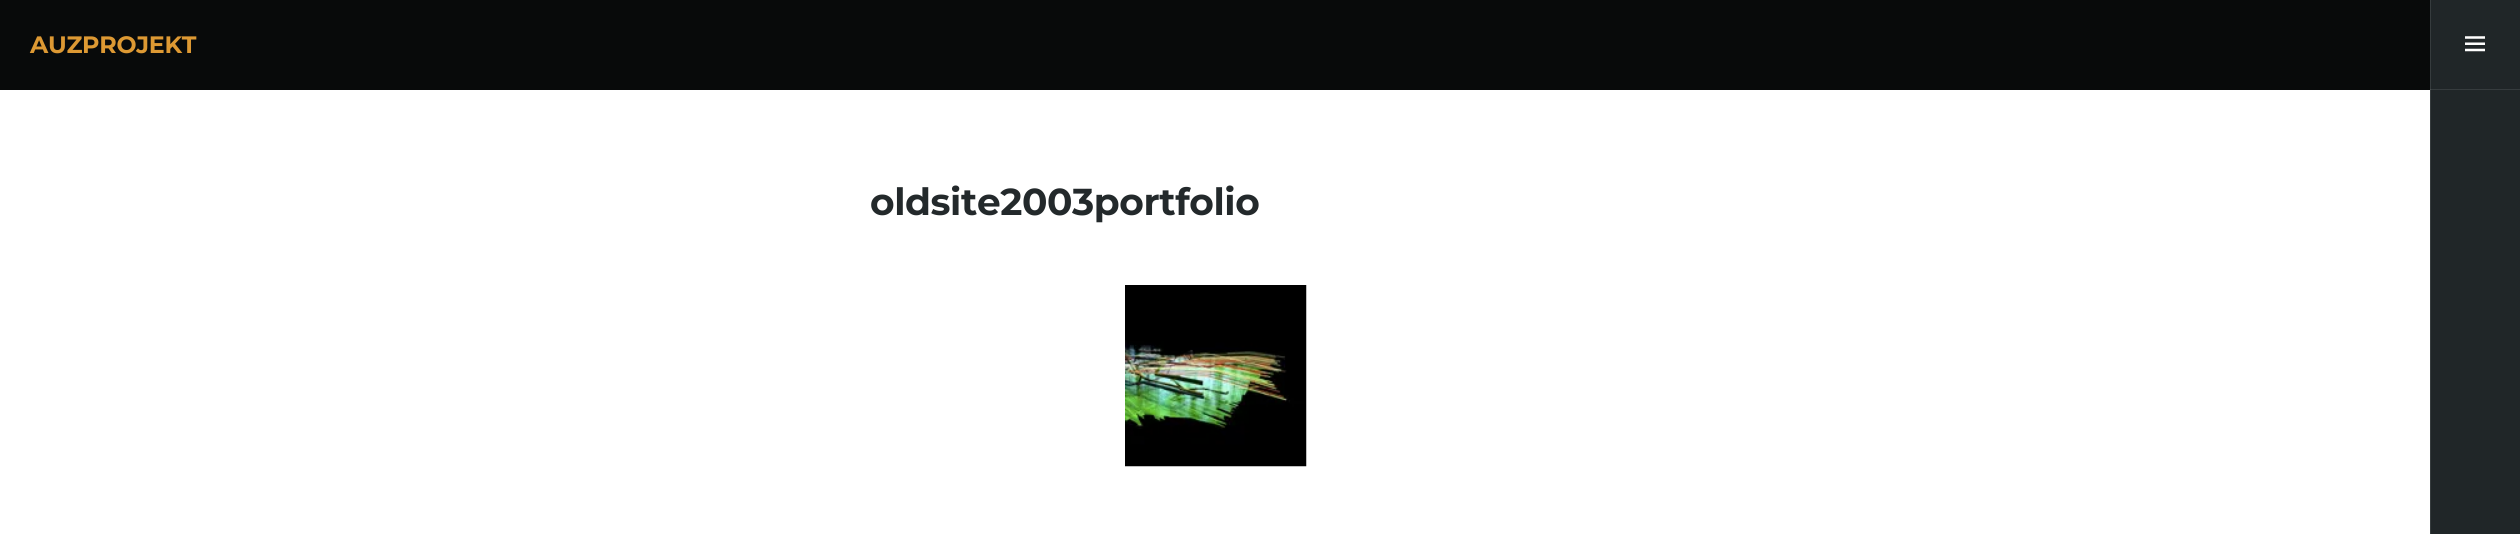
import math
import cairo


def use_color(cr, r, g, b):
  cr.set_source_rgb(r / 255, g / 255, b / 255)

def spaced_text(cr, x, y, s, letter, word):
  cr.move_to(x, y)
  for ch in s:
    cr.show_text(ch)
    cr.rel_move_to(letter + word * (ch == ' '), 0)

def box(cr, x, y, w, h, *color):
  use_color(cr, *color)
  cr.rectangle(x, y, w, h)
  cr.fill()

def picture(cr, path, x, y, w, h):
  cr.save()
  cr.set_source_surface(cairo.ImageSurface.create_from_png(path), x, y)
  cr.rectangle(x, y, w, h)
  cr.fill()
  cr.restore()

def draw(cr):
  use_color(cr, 255, 255, 255)
  cr.paint()
  box(cr, 0, 0, 2430, 90, 8, 10, 10)
  box(cr, 2431, 0, 89, 534, 32, 38, 40)
  picture(cr, "img_01.png", 2465, 36, 20, 16)
  picture(cr, "img_02.png", 1125, 285, 182, 182)
  box(cr, 2430, 89, 90, 1, 54, 60, 62)
  box(cr, 2430, 0, 1, 534, 54, 60, 62)
  box(cr, 2430, 89, 1, 1, 74, 80, 81)
  cr.select_font_face("Montserrat", cairo.FONT_SLANT_NORMAL, cairo.FONT_WEIGHT_BOLD)
  cr.set_font_size(23.75)
  use_color(cr, 221, 153, 51)
  spaced_text(cr, 30, 53, "AUZPROJEKT", -0.25, 0)
  cr.set_font_size(37.5)
  use_color(cr, 35, 41, 43)
  spaced_text(cr, 870, 215, "oldsite2003portfolio", -0.4, 0)


surface = cairo.ImageSurface(cairo.FORMAT_RGB24, 2520, 534)
cr = cairo.Context(surface)
options = cairo.FontOptions()
options.set_hint_metrics(cairo.HINT_METRICS_OFF)
options.set_hint_style(cairo.HINT_STYLE_NONE)
cr.set_font_options(options)
cr.set_miter_limit(4)
draw(cr)
surface.write_to_png("out.png")
